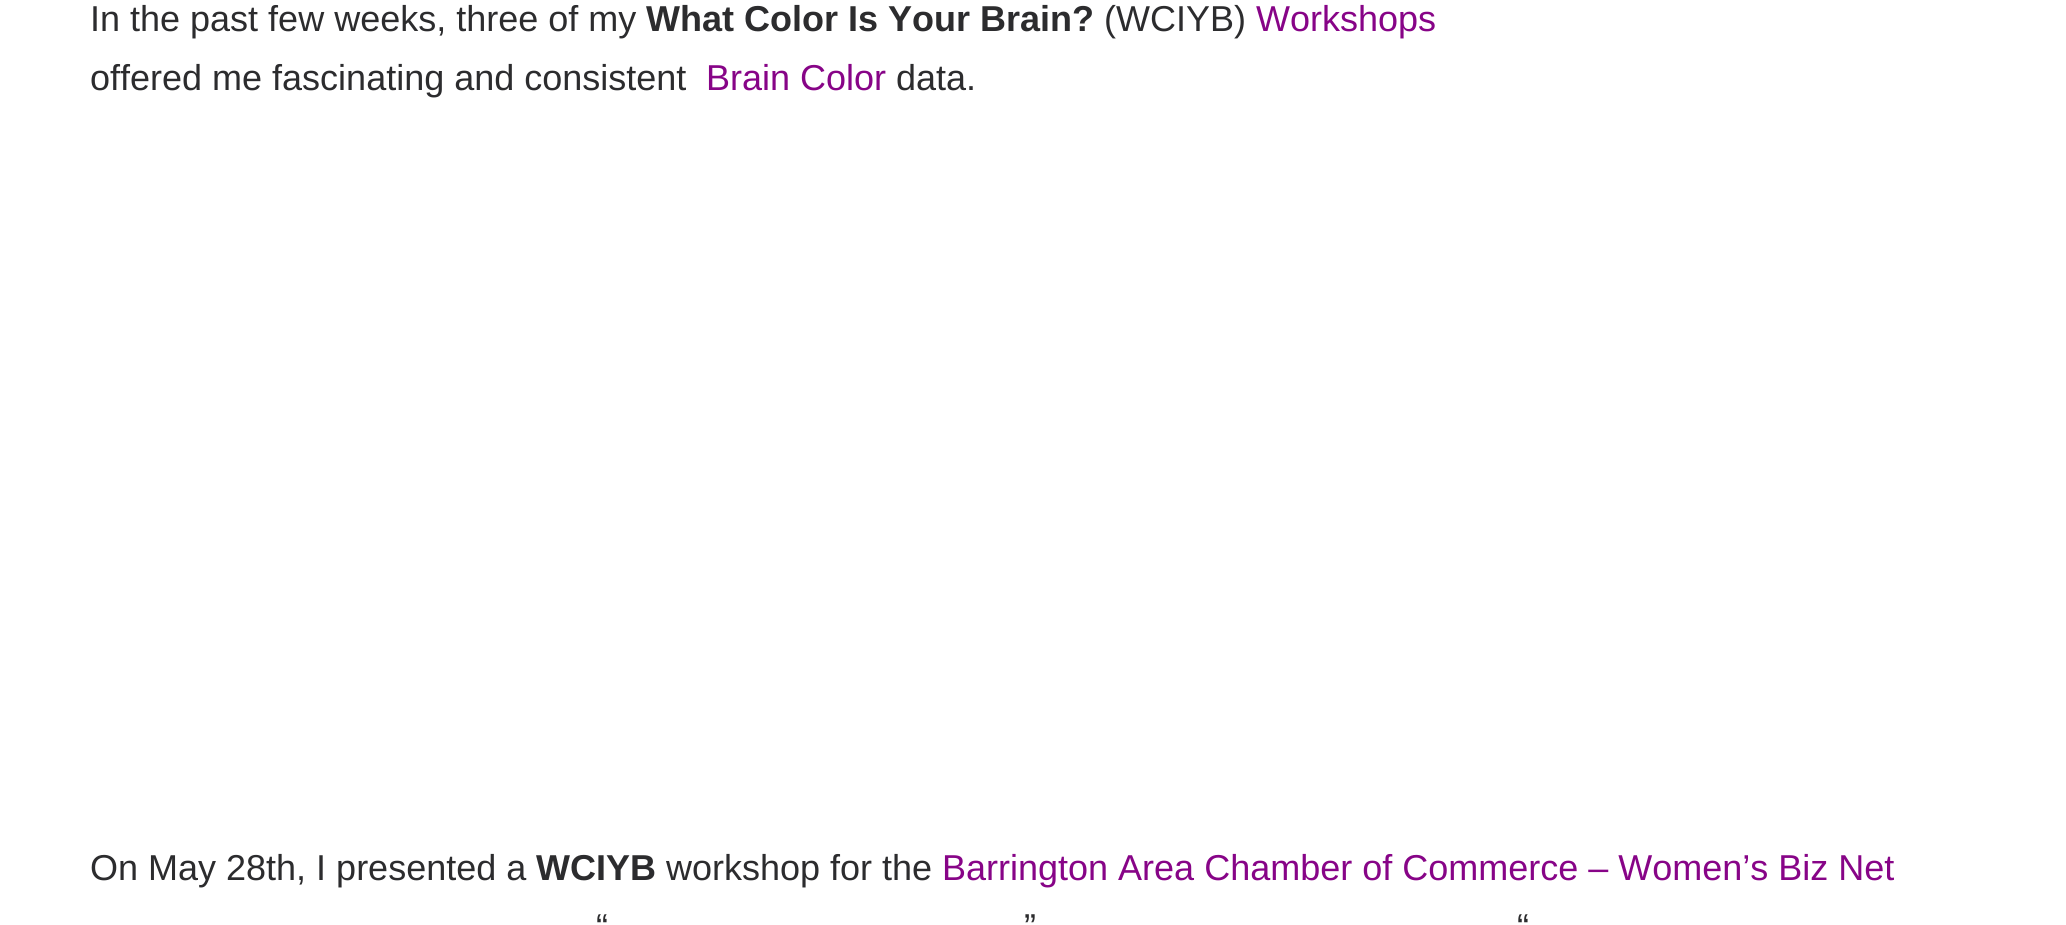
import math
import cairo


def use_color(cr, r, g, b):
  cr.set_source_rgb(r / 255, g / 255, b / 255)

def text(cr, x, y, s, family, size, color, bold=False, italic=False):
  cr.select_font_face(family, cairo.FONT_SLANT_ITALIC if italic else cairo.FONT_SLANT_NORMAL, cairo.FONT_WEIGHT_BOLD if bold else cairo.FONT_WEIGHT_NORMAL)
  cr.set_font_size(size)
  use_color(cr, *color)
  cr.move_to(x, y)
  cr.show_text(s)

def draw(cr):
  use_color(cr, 255, 255, 255)
  cr.paint()
  text(cr, 90, 31, "In the past few weeks, three of my", "Liberation Sans", 36, (44, 44, 46))
  text(cr, 646, 31, "What Color Is Your Brain?", "Liberation Sans", 36, (44, 44, 46), bold=True)
  text(cr, 1104, 31, "(WCIYB)", "Liberation Sans", 36, (44, 44, 46))
  text(cr, 1256, 31, "Workshops", "Liberation Sans", 36, (135, 4, 135))
  text(cr, 90, 90, "offered me fascinating and consistent", "Liberation Sans", 36, (44, 44, 46))
  text(cr, 706, 90, "Brain Color", "Liberation Sans", 36, (135, 4, 135))
  text(cr, 896, 90, "data.", "Liberation Sans", 36, (44, 44, 46))
  text(cr, 90, 880, "On May 28th, I presented a", "Liberation Sans", 36, (44, 44, 46))
  text(cr, 536, 880, "WCIYB", "Liberation Sans", 36, (44, 44, 46), bold=True)
  text(cr, 666, 880, "workshop for the", "Liberation Sans", 36, (44, 44, 46))
  text(cr, 942, 880, "Barrington Area Chamber of Commerce – Women’s Biz Net", "Liberation Sans", 36, (135, 4, 135))
  text(cr, 596, 939, "“", "Liberation Sans", 36, (44, 44, 46))
  text(cr, 1024, 939, "”", "Liberation Sans", 36, (44, 44, 46))
  text(cr, 1517, 939, "“", "Liberation Sans", 36, (44, 44, 46))


surface = cairo.ImageSurface(cairo.FORMAT_RGB24, 2066, 925)
cr = cairo.Context(surface)
options = cairo.FontOptions()
options.set_hint_metrics(cairo.HINT_METRICS_OFF)
options.set_hint_style(cairo.HINT_STYLE_NONE)
cr.set_font_options(options)
cr.set_miter_limit(4)
draw(cr)
surface.write_to_png("out.png")
